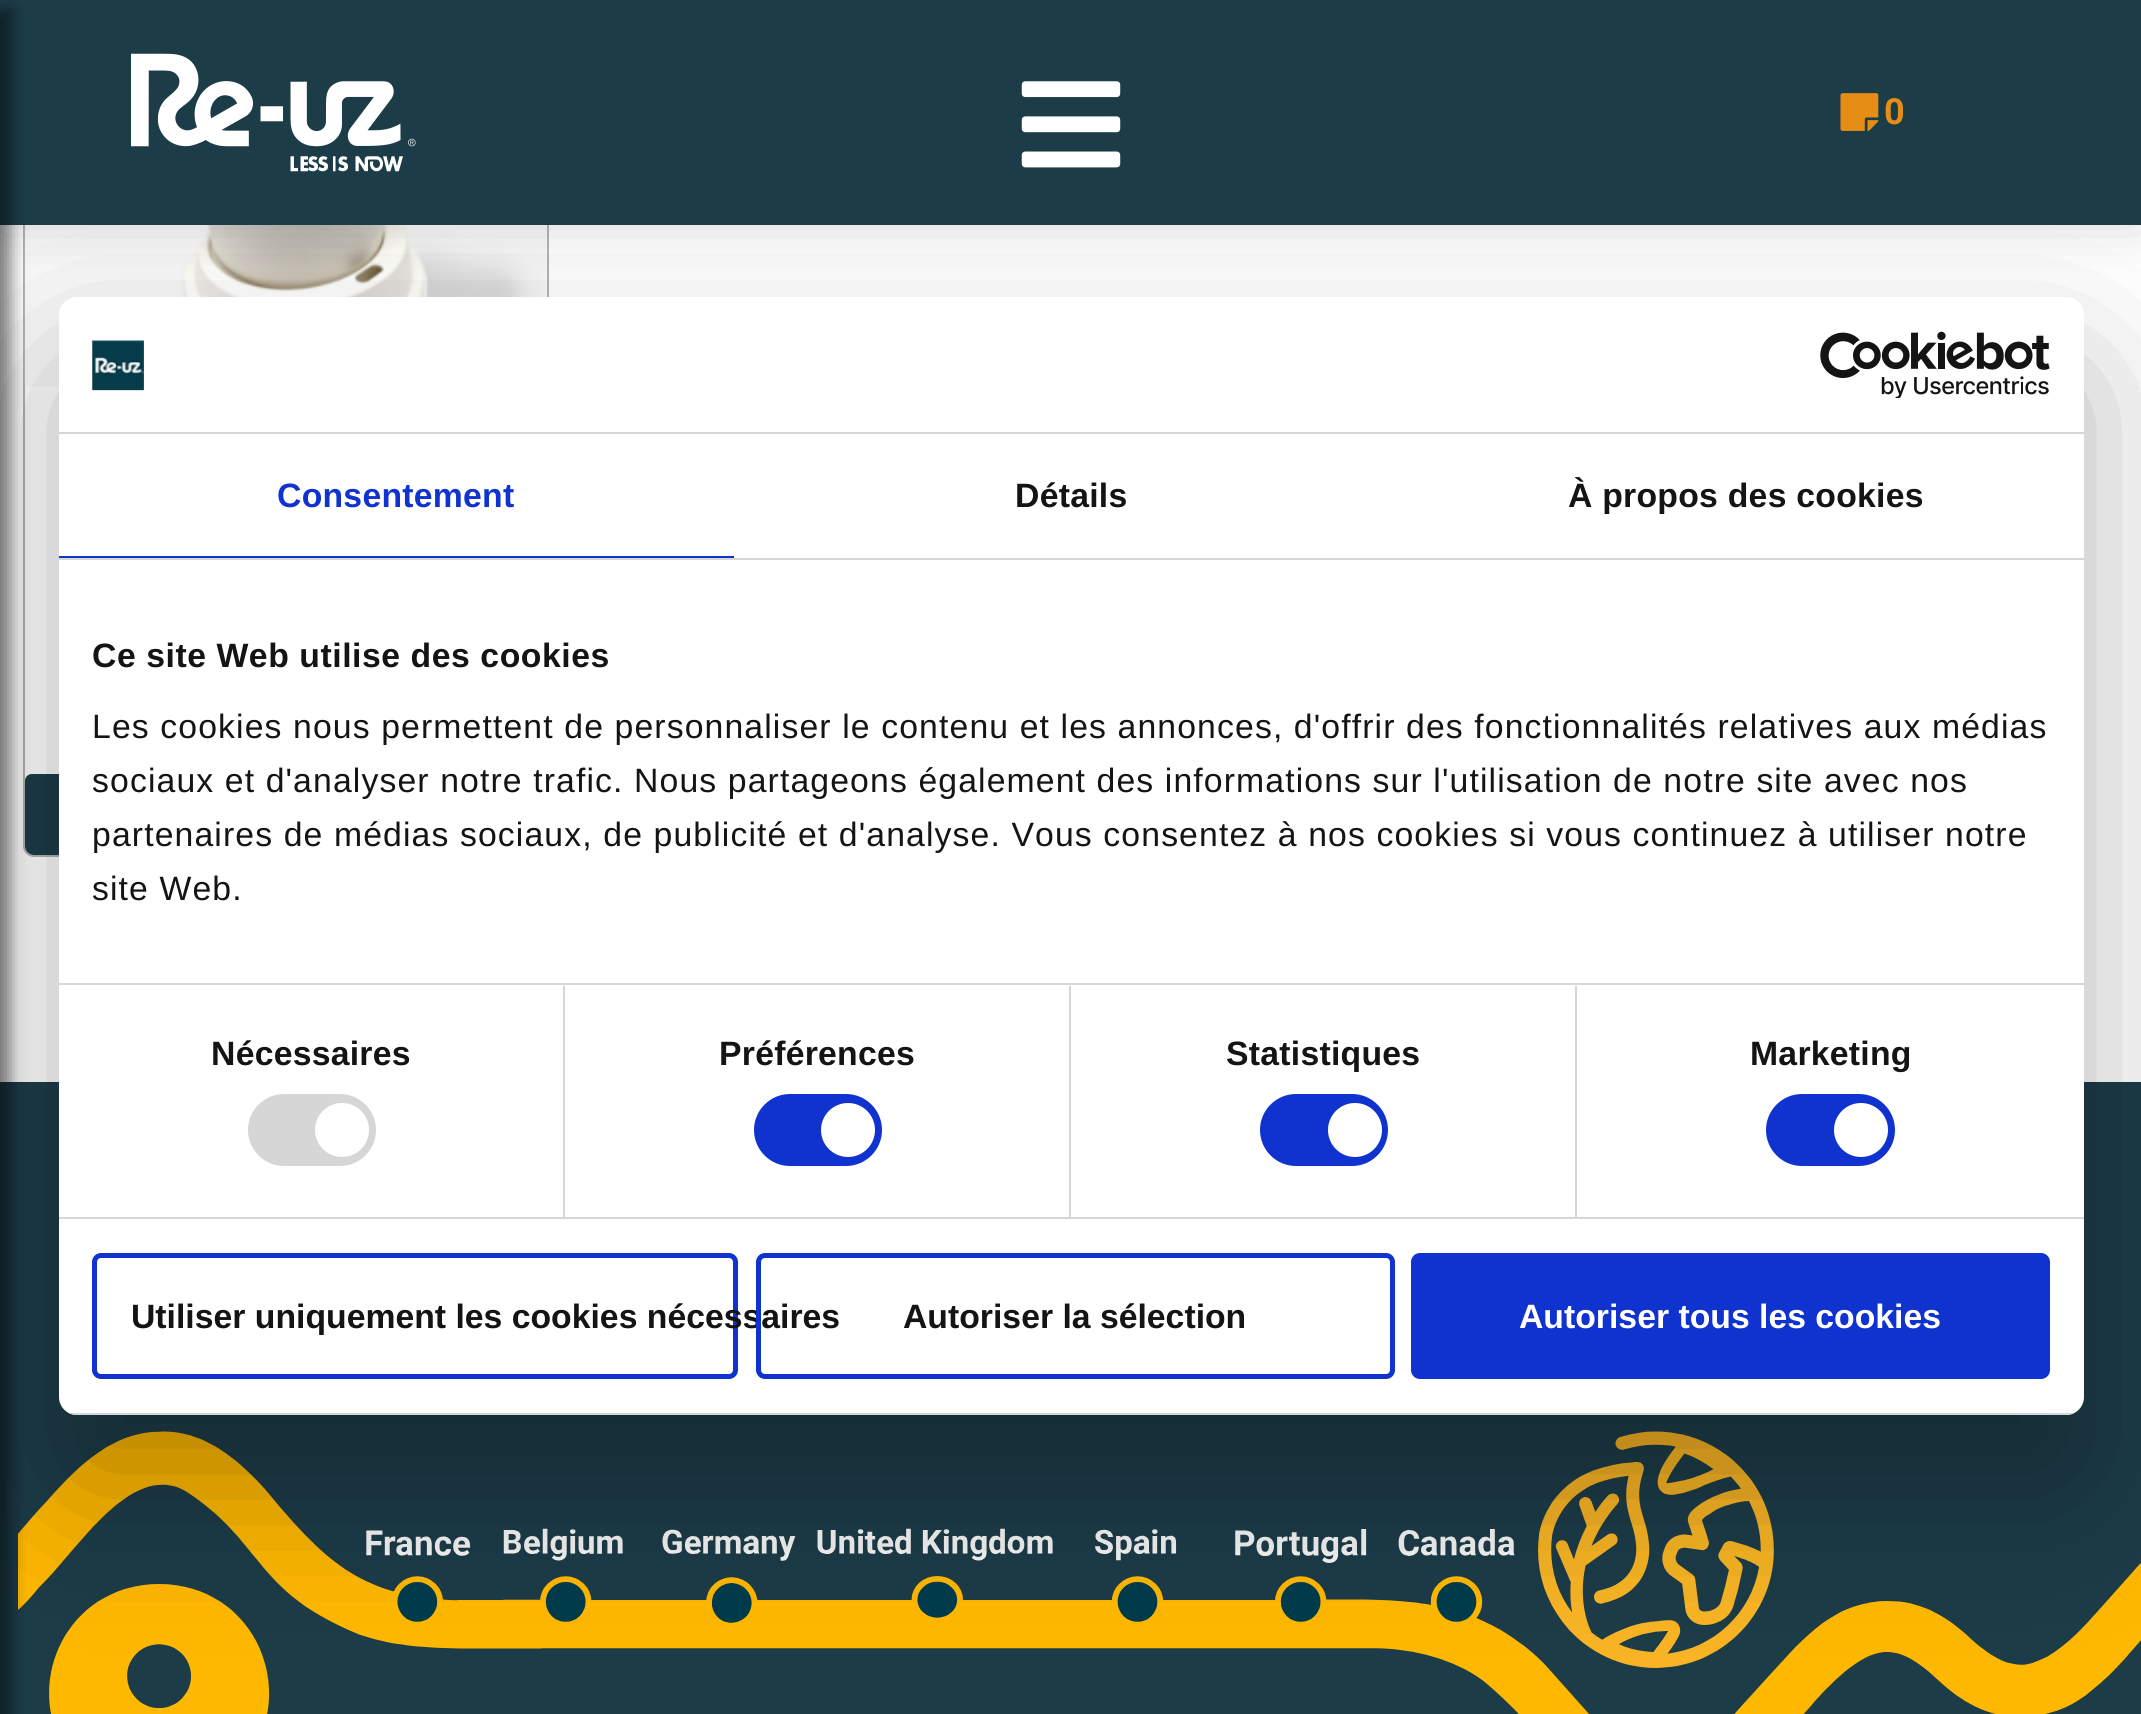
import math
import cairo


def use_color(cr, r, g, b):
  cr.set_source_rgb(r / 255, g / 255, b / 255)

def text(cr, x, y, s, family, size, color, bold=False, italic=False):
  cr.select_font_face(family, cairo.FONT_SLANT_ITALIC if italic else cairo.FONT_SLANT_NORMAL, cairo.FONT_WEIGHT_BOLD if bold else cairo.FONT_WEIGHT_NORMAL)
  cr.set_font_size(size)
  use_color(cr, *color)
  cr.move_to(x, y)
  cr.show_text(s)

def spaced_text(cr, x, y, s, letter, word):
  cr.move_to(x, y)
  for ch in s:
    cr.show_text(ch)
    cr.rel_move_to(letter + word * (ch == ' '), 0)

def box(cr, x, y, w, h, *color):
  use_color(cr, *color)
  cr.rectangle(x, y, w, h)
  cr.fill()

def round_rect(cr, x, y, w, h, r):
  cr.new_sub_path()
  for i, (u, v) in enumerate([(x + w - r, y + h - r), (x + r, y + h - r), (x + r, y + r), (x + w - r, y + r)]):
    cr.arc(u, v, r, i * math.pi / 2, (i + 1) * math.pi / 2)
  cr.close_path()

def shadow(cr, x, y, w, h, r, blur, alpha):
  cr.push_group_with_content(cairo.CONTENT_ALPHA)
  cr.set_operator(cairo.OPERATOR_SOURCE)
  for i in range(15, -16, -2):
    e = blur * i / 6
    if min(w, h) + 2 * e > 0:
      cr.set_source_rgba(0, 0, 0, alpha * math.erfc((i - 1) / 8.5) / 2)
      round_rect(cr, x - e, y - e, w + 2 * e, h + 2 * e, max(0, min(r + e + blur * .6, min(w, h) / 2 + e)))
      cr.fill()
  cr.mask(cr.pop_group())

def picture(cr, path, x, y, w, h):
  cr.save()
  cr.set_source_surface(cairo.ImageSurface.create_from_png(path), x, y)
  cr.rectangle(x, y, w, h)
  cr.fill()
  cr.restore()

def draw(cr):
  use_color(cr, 255, 255, 255)
  cr.paint()
  round_rect(cr, 24, -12, 524, 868, 10)
  use_color(cr, 180, 180, 180)
  cr.stroke()
  picture(cr, "img_01.png", 24, 225, 523, 162)
  use_color(cr, 28, 60, 72)
  cr.new_path()
  cr.move_to(32, 774)
  cr.line_to(540, 774)
  cr.curve_to(544, 774, 547, 777, 547, 781)
  cr.line_to(547, 846)
  cr.curve_to(547, 851, 543, 855, 538, 855)
  cr.line_to(34, 855)
  cr.curve_to(29, 855, 25, 851, 25, 846)
  cr.line_to(25, 781)
  cr.curve_to(25, 777, 28, 774, 32, 774)
  cr.close_path()
  cr.fill()
  use_color(cr, 0, 0, 0)
  shadow(cr, 0, 0, 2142, 225, 0, 27, 0.15)
  box(cr, 0, 0, 2141, 225, 28, 60, 72)
  box(cr, 0, 1082, 2141, 632, 28, 60, 72)
  picture(cr, "img_07.png", 18, 1431, 2123, 283)
  use_color(cr, 0, 0, 0)
  shadow(cr, -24, 11, 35, 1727, 0, 8, 0.5)
  picture(cr, "img_02.png", 131, 53, 285, 119)
  picture(cr, "img_03.png", 1021, 81, 100, 87)
  picture(cr, "img_04.png", 1840, 93, 39, 38)
  shadow(cr, 59, 369, 2025, 1118, 18, 76.5, 0.3)
  use_color(cr, 255, 255, 255)
  round_rect(cr, 59, 297, 2025, 1118, 18)
  cr.fill()
  box(cr, 59, 432, 2025, 2, 214, 214, 214)
  picture(cr, "img_05.png", 92, 340, 52, 51)
  picture(cr, "img_06.png", 1820, 331, 230, 67)
  box(cr, 59, 558, 2025, 2, 214, 214, 214)
  box(cr, 59, 556, 675, 2, 16, 50, 207)
  box(cr, 59, 983, 2025, 2, 214, 214, 214)
  box(cr, 59, 1217, 2025, 2, 214, 214, 214)
  box(cr, 563, 986, 2, 231, 214, 214, 214)
  round_rect(cr, 248, 1094, 128, 72, 36)
  cr.fill()
  use_color(cr, 255, 255, 255)
  cr.arc(342, 1130, 27, 0, 2 * math.pi)
  cr.fill()
  box(cr, 1069, 986, 2, 231, 214, 214, 214)
  use_color(cr, 16, 50, 207)
  round_rect(cr, 754, 1094, 128, 72, 36)
  cr.fill()
  use_color(cr, 255, 255, 255)
  cr.arc(848, 1130, 27, 0, 2 * math.pi)
  cr.fill()
  box(cr, 1575, 986, 2, 231, 214, 214, 214)
  use_color(cr, 16, 50, 207)
  round_rect(cr, 1260, 1094, 128, 72, 36)
  cr.fill()
  use_color(cr, 255, 255, 255)
  cr.arc(1355, 1130, 27, 0, 2 * math.pi)
  cr.fill()
  use_color(cr, 16, 50, 207)
  round_rect(cr, 1766, 1094, 129, 72, 36)
  cr.fill()
  use_color(cr, 255, 255, 255)
  cr.arc(1861, 1130, 27, 0, 2 * math.pi)
  cr.fill()
  cr.save()
  round_rect(cr, 59, 297, 2025, 1118, 18)
  cr.clip()
  box(cr, 69, 1413, 2005, 2, 214, 214, 214)
  cr.restore()
  round_rect(cr, 94.5, 1255.5, 641, 121, 6.5)
  use_color(cr, 16, 50, 207)
  cr.set_line_width(5)
  cr.stroke()
  round_rect(cr, 1413.5, 1255.5, 634, 121, 6.5)
  cr.fill_preserve()
  cr.stroke()
  text(cr, 1884, 124, "0", "Roboto", 36, (230, 141, 21), bold=True)
  cr.select_font_face("Liberation Sans", cairo.FONT_SLANT_NORMAL, cairo.FONT_WEIGHT_BOLD)
  cr.set_font_size(33.75)
  use_color(cr, 16, 50, 207)
  spaced_text(cr, 277, 507, "Consentement", 0.25, 0)
  use_color(cr, 20, 20, 20)
  spaced_text(cr, 1015, 507, "Détails", 0.25, 0)
  spaced_text(cr, 1568, 507, "À propos des cookies", 0.25, 0)
  spaced_text(cr, 92, 667, "Ce site Web utilise des cookies", 0.55, 0)
  cr.select_font_face("Liberation Sans")
  spaced_text(cr, 92, 738, "Les cookies nous permettent de personnaliser le contenu et les annonces, d'offrir des fonctionnalités relatives aux médias", 1.12, 0)
  spaced_text(cr, 92, 792, "sociaux et d'analyser notre trafic. Nous partageons également des informations sur l'utilisation de notre site avec nos", 1.12, 0)
  spaced_text(cr, 92, 846, "partenaires de médias sociaux, de publicité et d'analyse. Vous consentez à nos cookies si vous continuez à utiliser notre", 1.12, 0)
  spaced_text(cr, 92, 900, "site Web.", 1.12, 0)
  cr.select_font_face("Liberation Sans", cairo.FONT_SLANT_NORMAL, cairo.FONT_WEIGHT_BOLD)
  spaced_text(cr, 211, 1065, "Nécessaires", 0.25, 0)
  spaced_text(cr, 719, 1065, "Préférences", 0.25, 0)
  spaced_text(cr, 1226, 1065, "Statistiques", 0.25, 0)
  spaced_text(cr, 1750, 1065, "Marketing", 0.25, 0)
  text(cr, 131, 1328, "Utiliser uniquement les cookies nécessaires", "Liberation Sans", 33.75, (20, 20, 20), bold=True)
  round_rect(cr, 758.5, 1255.5, 634, 121, 6.5)
  use_color(cr, 16, 50, 207)
  cr.stroke()
  text(cr, 903, 1328, "Autoriser la sélection", "Liberation Sans", 33.75, (20, 20, 20), bold=True)
  text(cr, 1519, 1328, "Autoriser tous les cookies", "Liberation Sans", 33.75, (255, 255, 255), bold=True)


surface = cairo.ImageSurface(cairo.FORMAT_RGB24, 2141, 1714)
cr = cairo.Context(surface)
options = cairo.FontOptions()
options.set_hint_metrics(cairo.HINT_METRICS_OFF)
options.set_hint_style(cairo.HINT_STYLE_NONE)
cr.set_font_options(options)
cr.set_miter_limit(4)
draw(cr)
surface.write_to_png("out.png")
